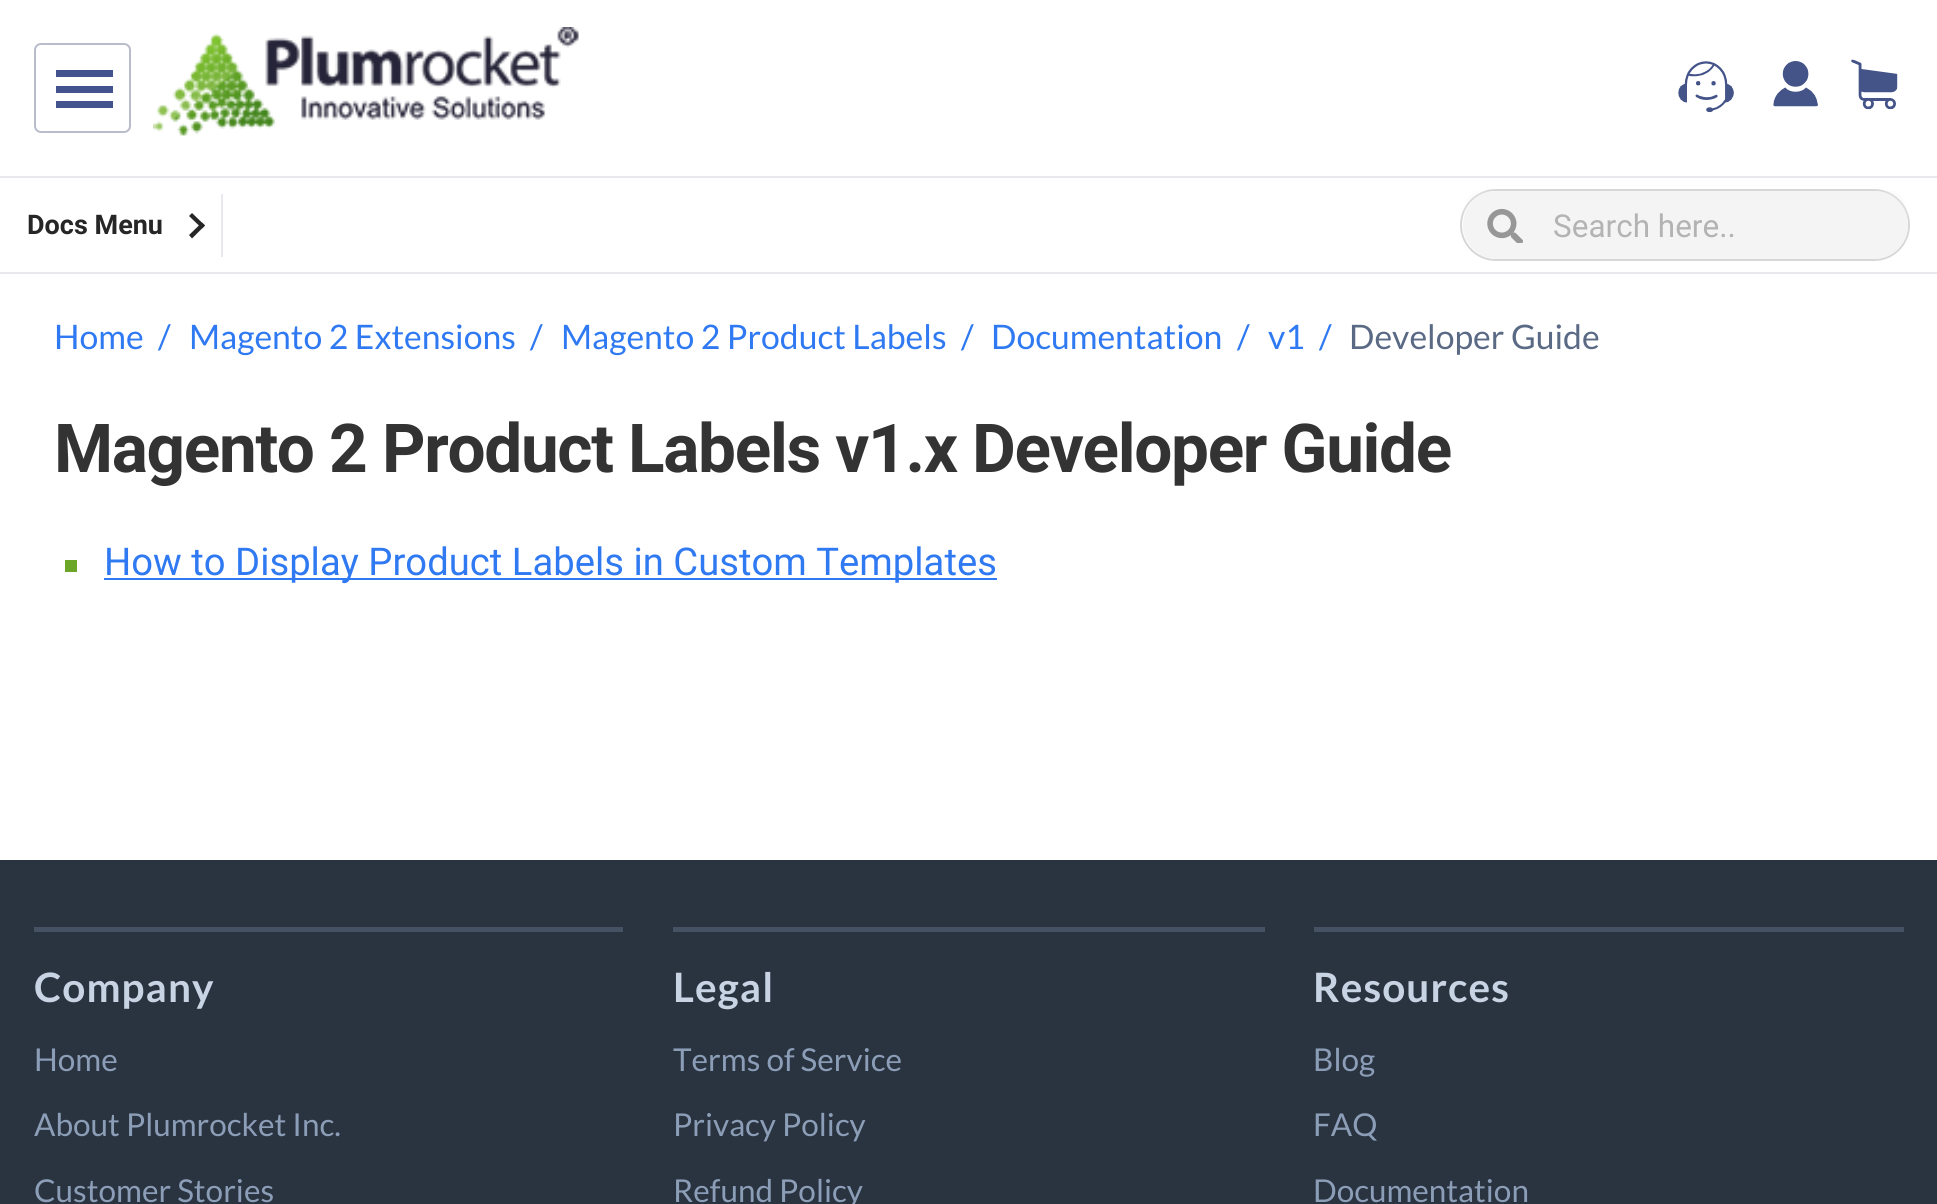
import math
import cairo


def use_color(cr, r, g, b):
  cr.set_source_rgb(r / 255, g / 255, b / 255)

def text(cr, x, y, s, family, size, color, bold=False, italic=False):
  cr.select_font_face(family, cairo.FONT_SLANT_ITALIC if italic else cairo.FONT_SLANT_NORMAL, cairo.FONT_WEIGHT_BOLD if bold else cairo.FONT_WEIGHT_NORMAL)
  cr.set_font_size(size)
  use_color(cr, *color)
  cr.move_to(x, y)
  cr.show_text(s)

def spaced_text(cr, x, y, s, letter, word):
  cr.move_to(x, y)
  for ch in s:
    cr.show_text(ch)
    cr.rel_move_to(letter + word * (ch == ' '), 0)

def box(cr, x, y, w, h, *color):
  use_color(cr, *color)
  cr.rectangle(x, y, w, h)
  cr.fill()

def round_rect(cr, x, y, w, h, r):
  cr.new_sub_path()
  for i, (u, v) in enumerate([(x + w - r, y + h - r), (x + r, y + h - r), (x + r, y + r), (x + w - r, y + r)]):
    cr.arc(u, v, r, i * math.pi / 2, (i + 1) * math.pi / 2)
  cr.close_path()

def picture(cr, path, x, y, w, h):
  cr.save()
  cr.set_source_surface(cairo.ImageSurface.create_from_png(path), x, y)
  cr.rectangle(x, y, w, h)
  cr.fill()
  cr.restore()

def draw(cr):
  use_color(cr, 255, 255, 255)
  cr.paint()
  round_rect(cr, 35, 44, 95, 88, 6)
  use_color(cr, 185, 188, 203)
  cr.stroke()
  box(cr, 56, 101, 57, 7, 67, 83, 142)
  box(cr, 56, 70, 57, 7, 67, 83, 142)
  box(cr, 56, 86, 57, 7, 67, 83, 142)
  picture(cr, "img_01.png", 153, 27, 426, 109)
  picture(cr, "img_02.png", 1678, 61, 56, 52)
  picture(cr, "img_03.png", 1773, 61, 45, 46)
  picture(cr, "img_04.png", 1851, 59, 47, 51)
  box(cr, 0, 176, 1937, 2, 232, 233, 237)
  box(cr, 0, 272, 1937, 2, 232, 233, 237)
  use_color(cr, 38, 38, 38)
  cr.new_path()
  cr.move_to(189, 216)
  cr.line_to(192, 213)
  cr.line_to(205, 225.5)
  cr.line_to(202, 228.5)
  cr.close_path()
  cr.fill()
  cr.new_path()
  cr.move_to(189, 235)
  cr.line_to(202, 222.5)
  cr.line_to(205, 225.5)
  cr.line_to(192, 238.5)
  cr.close_path()
  cr.fill()
  box(cr, 221, 194, 2, 63, 232, 233, 237)
  round_rect(cr, 1461, 190, 448, 70, 35)
  use_color(cr, 215, 215, 215)
  cr.stroke()
  cr.save()
  cr.rectangle(1463, 191, 445, 68)
  cr.clip()
  cr.set_source_rgba(0.957, 0.957, 0.957, 0.2)
  round_rect(cr, 1463, 182, 445, 68, 34)
  cr.fill()
  cr.restore()
  use_color(cr, 244, 244, 244)
  round_rect(cr, 1463, 191, 445, 68, 34)
  cr.fill()
  picture(cr, "img_05.png", 1487, 208, 36, 35)
  box(cr, 65, 560, 12, 12, 108, 166, 40)
  box(cr, 104, 578, 893, 2, 47, 121, 242)
  box(cr, 0, 860, 1937, 344, 42, 51, 64)
  box(cr, 34, 927, 589, 5, 70, 82, 99)
  box(cr, 673, 927, 592, 5, 70, 82, 99)
  box(cr, 1314, 927, 590, 5, 70, 82, 99)
  text(cr, 27, 234, "Docs Menu", "Roboto", 27, (38, 38, 38), bold=True)
  text(cr, 1553, 237, "Search here..", "Roboto", 31.5, (179, 179, 179))
  text(cr, 54, 349, "Home", "Lato", 33.75, (47, 121, 242))
  text(cr, 158, 349, "/", "Lato", 33.75, (47, 121, 242))
  text(cr, 189, 349, "Magento 2 Extensions", "Lato", 33.75, (47, 121, 242))
  text(cr, 530, 349, "/", "Lato", 33.75, (47, 121, 242))
  text(cr, 561, 349, "Magento 2 Product Labels", "Lato", 33.75, (47, 121, 242))
  text(cr, 961, 349, "/", "Lato", 33.75, (47, 121, 242))
  text(cr, 991, 349, "Documentation", "Lato", 33.75, (47, 121, 242))
  text(cr, 1237, 349, "/", "Lato", 33.75, (47, 121, 242))
  text(cr, 1268, 349, "v1", "Lato", 33.75, (47, 121, 242))
  text(cr, 1319, 349, "/", "Lato", 33.75, (47, 121, 242))
  text(cr, 1349, 349, "Developer Guide", "Lato", 33.75, (90, 106, 133))
  cr.select_font_face("Roboto", cairo.FONT_SLANT_NORMAL, cairo.FONT_WEIGHT_BOLD)
  cr.set_font_size(67.5)
  use_color(cr, 51, 51, 51)
  spaced_text(cr, 54, 472, "Magento 2 Product Labels v1.x Developer Guide", -1.35, 0)
  text(cr, 104, 575, "How to Display Product Labels in Custom Templates", "Roboto", 38.25, (47, 121, 242))
  cr.select_font_face("Lato", cairo.FONT_SLANT_NORMAL, cairo.FONT_WEIGHT_BOLD)
  cr.set_font_size(40.5)
  use_color(cr, 200, 211, 227)
  spaced_text(cr, 34, 1002, "Company", 1.1, 0)
  text(cr, 34, 1071, "Home", "Lato", 31.5, (140, 158, 183))
  text(cr, 34, 1136, "About Plumrocket Inc.", "Lato", 31.5, (140, 158, 183))
  text(cr, 34, 1202, "Customer Stories", "Lato", 31.5, (140, 158, 183))
  cr.select_font_face("Lato", cairo.FONT_SLANT_NORMAL, cairo.FONT_WEIGHT_BOLD)
  cr.set_font_size(40.5)
  use_color(cr, 200, 211, 227)
  spaced_text(cr, 673, 1002, "Legal", 1.1, 0)
  text(cr, 673, 1071, "Terms of Service", "Lato", 31.5, (140, 158, 183))
  text(cr, 673, 1136, "Privacy Policy", "Lato", 31.5, (140, 158, 183))
  text(cr, 673, 1202, "Refund Policy", "Lato", 31.5, (140, 158, 183))
  cr.select_font_face("Lato", cairo.FONT_SLANT_NORMAL, cairo.FONT_WEIGHT_BOLD)
  cr.set_font_size(40.5)
  use_color(cr, 200, 211, 227)
  spaced_text(cr, 1313, 1002, "Resources", 1.1, 0)
  text(cr, 1313, 1071, "Blog", "Lato", 31.5, (140, 158, 183))
  text(cr, 1313, 1136, "FAQ", "Lato", 31.5, (140, 158, 183))
  text(cr, 1313, 1202, "Documentation", "Lato", 31.5, (140, 158, 183))


surface = cairo.ImageSurface(cairo.FORMAT_RGB24, 1937, 1204)
cr = cairo.Context(surface)
options = cairo.FontOptions()
options.set_hint_metrics(cairo.HINT_METRICS_OFF)
options.set_hint_style(cairo.HINT_STYLE_NONE)
cr.set_font_options(options)
cr.set_miter_limit(4)
draw(cr)
surface.write_to_png("out.png")
